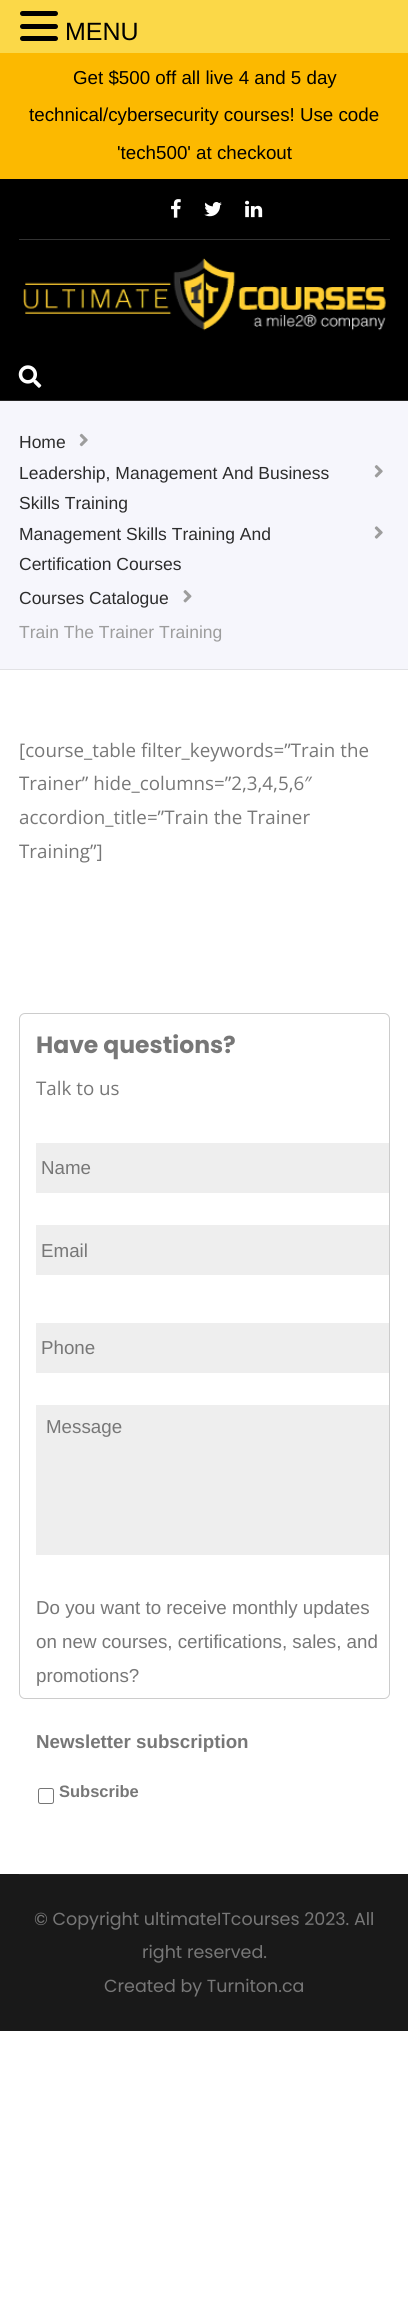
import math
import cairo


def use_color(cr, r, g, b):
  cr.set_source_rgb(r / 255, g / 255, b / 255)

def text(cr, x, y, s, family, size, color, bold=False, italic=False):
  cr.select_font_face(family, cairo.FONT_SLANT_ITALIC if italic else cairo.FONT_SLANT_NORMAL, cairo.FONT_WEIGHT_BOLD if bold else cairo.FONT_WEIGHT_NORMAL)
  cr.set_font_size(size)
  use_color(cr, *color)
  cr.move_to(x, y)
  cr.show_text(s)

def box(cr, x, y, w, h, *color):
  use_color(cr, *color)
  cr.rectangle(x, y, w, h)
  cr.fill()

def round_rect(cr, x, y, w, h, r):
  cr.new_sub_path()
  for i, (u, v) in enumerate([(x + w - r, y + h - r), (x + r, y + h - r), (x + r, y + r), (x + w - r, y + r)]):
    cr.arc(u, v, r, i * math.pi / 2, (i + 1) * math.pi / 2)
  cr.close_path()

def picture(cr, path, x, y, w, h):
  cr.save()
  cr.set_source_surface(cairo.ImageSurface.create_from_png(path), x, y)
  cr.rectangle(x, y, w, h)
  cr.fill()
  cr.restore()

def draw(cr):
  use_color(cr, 255, 255, 255)
  cr.paint()
  box(cr, 0, 0, 408, 53, 251, 216, 72)
  use_color(cr, 0, 0, 0)
  round_rect(cr, 20, 11, 38, 5, 2.5)
  cr.fill()
  round_rect(cr, 20, 24, 38, 5, 2.5)
  cr.fill()
  round_rect(cr, 20, 36, 38, 5, 2.5)
  cr.fill()
  box(cr, 0, 53, 408, 126, 252, 185, 0)
  box(cr, 0, 179, 408, 221, 0, 0, 0)
  box(cr, 0, 400, 408, 1, 38, 38, 38)
  box(cr, 19, 239, 371, 1, 51, 51, 51)
  picture(cr, "img_01.png", 171, 199, 10, 19)
  picture(cr, "img_02.png", 204, 202, 18, 15)
  picture(cr, "img_03.png", 245, 200, 18, 18)
  picture(cr, "img_04.png", 23, 258, 363, 73)
  picture(cr, "img_05.png", 18, 365, 24, 23)
  box(cr, 0, 401, 408, 268, 246, 246, 252)
  box(cr, 0, 669, 408, 1, 226, 226, 229)
  picture(cr, "img_06.png", 79, 433, 9, 14)
  picture(cr, "img_07.png", 374, 465, 9, 13)
  picture(cr, "img_08.png", 374, 526, 9, 13)
  picture(cr, "img_09.png", 183, 590, 9, 13)
  round_rect(cr, 19.5, 1013.5, 370, 685, 5.5)
  use_color(cr, 204, 204, 204)
  cr.set_line_width(1)
  cr.stroke()
  box(cr, 36, 1143, 353, 50, 238, 238, 238)
  box(cr, 36, 1225, 353, 50, 238, 238, 238)
  box(cr, 36, 1323, 353, 50, 238, 238, 238)
  box(cr, 36, 1405, 353, 150, 238, 238, 238)
  round_rect(cr, 38.5, 1788.5, 15, 15, 2)
  use_color(cr, 118, 118, 118)
  cr.stroke()
  box(cr, 0, 1874, 408, 157, 25, 25, 25)
  box(cr, 19, 1874, 371, 1, 36, 36, 36)
  text(cr, 65, 40, "MENU", "Liberation Sans", 25, (0, 0, 0))
  text(cr, 73, 84, "Get $500 off all live 4 and 5 day", "Liberation Sans", 18.75, (0, 0, 0))
  text(cr, 29, 121, "technical/cybersecurity courses! Use code", "Liberation Sans", 18.75, (0, 0, 0))
  text(cr, 117, 159, "'tech500' at checkout", "Liberation Sans", 18.75, (0, 0, 0))
  text(cr, 19, 448, "Home", "Liberation Sans", 17.5, (44, 44, 44))
  text(cr, 19, 479, "Leadership, Management And Business", "Liberation Sans", 17.5, (44, 44, 44))
  text(cr, 19, 509, "Skills Training", "Liberation Sans", 17.5, (44, 44, 44))
  text(cr, 19, 540, "Management Skills Training And", "Liberation Sans", 17.5, (44, 44, 44))
  text(cr, 19, 570, "Certification Courses", "Liberation Sans", 17.5, (44, 44, 44))
  text(cr, 19, 604, "Courses Catalogue", "Liberation Sans", 17.5, (44, 44, 44))
  text(cr, 19, 638, "Train The Trainer Training", "Liberation Sans", 17.5, (157, 157, 157))
  text(cr, 19, 757, "[course_table filter_keywords=”Train the", "Open Sans", 18.75, (119, 119, 119))
  text(cr, 19, 790, "Trainer” hide_columns=”2,3,4,5,6″", "Open Sans", 18.75, (119, 119, 119))
  text(cr, 19, 824, "accordion_title=”Train the Trainer", "Open Sans", 18.75, (119, 119, 119))
  text(cr, 19, 858, "Training”]", "Open Sans", 18.75, (119, 119, 119))
  text(cr, 36, 1053, "Have questions?", "Poppins", 23.5, (119, 119, 119), bold=True)
  text(cr, 36, 1095, "Talk to us", "Open Sans", 18.75, (119, 119, 119))
  text(cr, 41, 1174, "Name", "Liberation Sans", 18.75, (119, 119, 119))
  text(cr, 41, 1257, "Email", "Liberation Sans", 18.75, (119, 119, 119))
  text(cr, 41, 1354, "Phone", "Liberation Sans", 18.75, (119, 119, 119))
  text(cr, 46, 1433, "Message", "Liberation Sans", 18.75, (119, 119, 119))
  text(cr, 36, 1614, "Do you want to receive monthly updates", "Liberation Sans", 18.75, (119, 119, 119))
  text(cr, 36, 1648, "on new courses, certifications, sales, and", "Liberation Sans", 18.75, (119, 119, 119))
  text(cr, 36, 1682, "promotions?", "Liberation Sans", 18.75, (119, 119, 119))
  text(cr, 36, 1748, "Newsletter subscription", "Liberation Sans", 18.75, (119, 119, 119), bold=True)
  text(cr, 59, 1797, "Subscribe", "Liberation Sans", 16.5, (119, 119, 119), bold=True)
  text(cr, 34, 1925, "© Copyright ultimateITcourses 2023. All", "Poppins", 17.5, (119, 119, 119))
  text(cr, 142, 1958, "right reserved.", "Poppins", 17.5, (119, 119, 119))
  text(cr, 104, 1992, "Created by Turniton.ca", "Poppins", 17.5, (119, 119, 119))


surface = cairo.ImageSurface(cairo.FORMAT_RGB24, 408, 2297)
cr = cairo.Context(surface)
options = cairo.FontOptions()
options.set_hint_metrics(cairo.HINT_METRICS_OFF)
options.set_hint_style(cairo.HINT_STYLE_NONE)
cr.set_font_options(options)
cr.set_miter_limit(4)
draw(cr)
surface.write_to_png("out.png")
